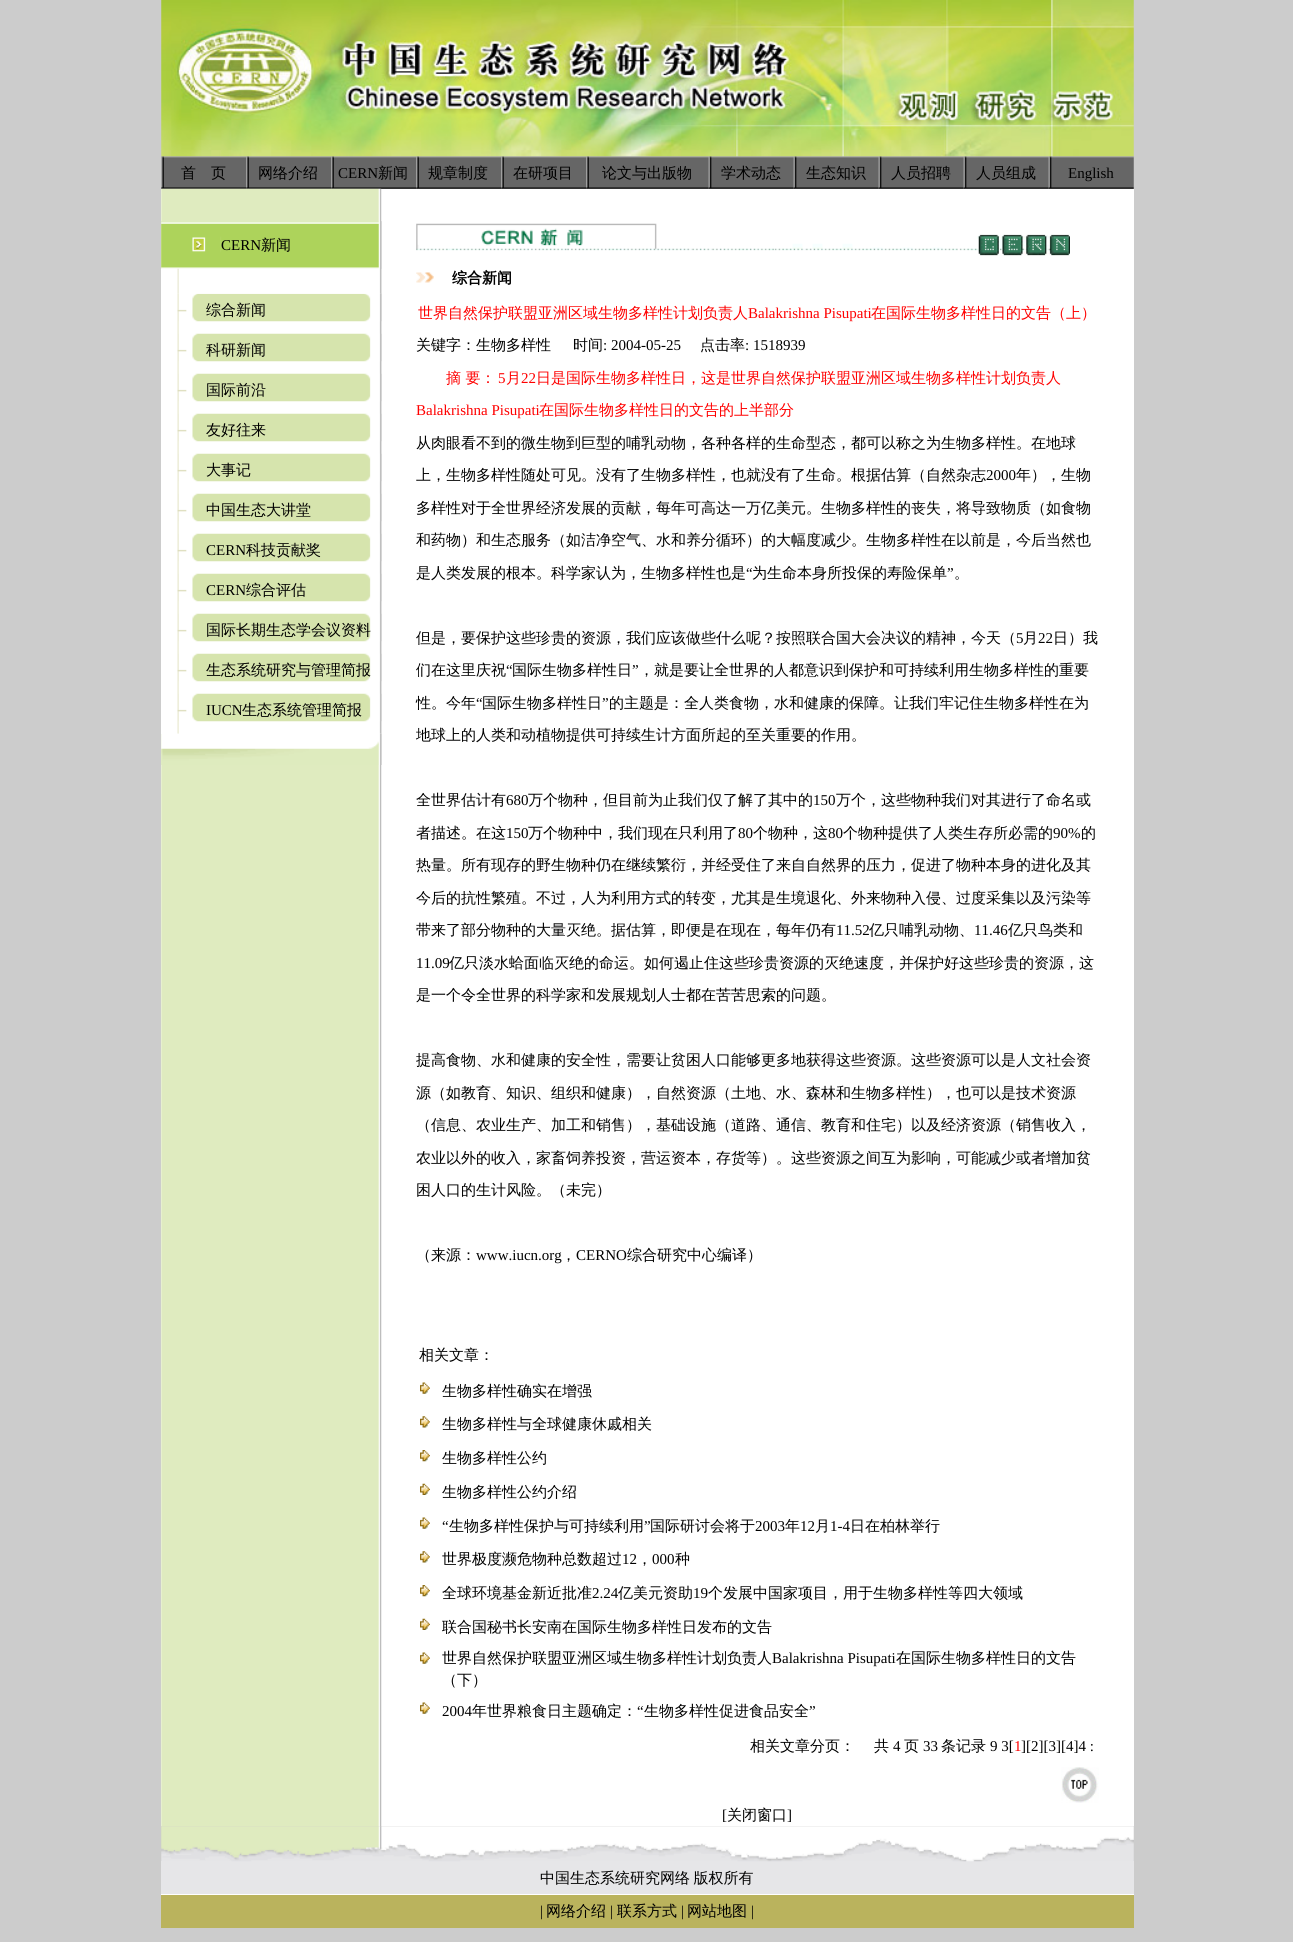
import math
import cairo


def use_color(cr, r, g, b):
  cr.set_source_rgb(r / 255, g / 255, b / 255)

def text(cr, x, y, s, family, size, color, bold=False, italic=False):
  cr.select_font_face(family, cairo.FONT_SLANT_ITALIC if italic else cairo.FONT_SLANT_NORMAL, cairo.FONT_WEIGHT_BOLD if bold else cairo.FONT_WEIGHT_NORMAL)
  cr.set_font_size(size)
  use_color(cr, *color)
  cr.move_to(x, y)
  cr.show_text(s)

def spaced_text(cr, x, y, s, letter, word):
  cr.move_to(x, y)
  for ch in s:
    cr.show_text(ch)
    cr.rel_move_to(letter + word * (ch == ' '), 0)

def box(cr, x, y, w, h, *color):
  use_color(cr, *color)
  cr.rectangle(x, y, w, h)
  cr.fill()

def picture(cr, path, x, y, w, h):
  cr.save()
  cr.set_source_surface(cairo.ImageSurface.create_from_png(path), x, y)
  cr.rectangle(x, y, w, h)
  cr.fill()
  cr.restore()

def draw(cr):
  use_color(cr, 204, 204, 204)
  cr.paint()
  picture(cr, "img_02.png", 161, 156, 86, 33)
  picture(cr, "img_03.png", 246, 156, 86, 33)
  picture(cr, "img_03.png", 331, 156, 86, 33)
  picture(cr, "img_03.png", 416, 156, 86, 33)
  picture(cr, "img_03.png", 501, 156, 86, 33)
  picture(cr, "img_04.png", 586, 156, 123, 33)
  picture(cr, "img_05.png", 708, 156, 86, 33)
  picture(cr, "img_05.png", 793, 156, 86, 33)
  picture(cr, "img_05.png", 878, 156, 86, 33)
  picture(cr, "img_05.png", 963, 156, 86, 33)
  picture(cr, "img_05.png", 1048, 156, 86, 33)
  picture(cr, "img_01.png", 161, 0, 973, 157)
  box(cr, 161, 189, 973, 1637, 255, 255, 255)
  picture(cr, "img_06.png", 161, 188, 221, 1639)
  picture(cr, "img_07.png", 161, 221, 221, 48)
  picture(cr, "img_08.png", 161, 221, 221, 48)
  box(cr, 161, 269, 220, 465, 255, 255, 255)
  picture(cr, "img_10.png", 177, 293, 205, 441)
  picture(cr, "img_11.png", 177, 293, 205, 29)
  picture(cr, "img_09.png", 161, 268, 221, 26)
  picture(cr, "img_12.png", 177, 333, 205, 29)
  picture(cr, "img_12.png", 177, 373, 205, 29)
  picture(cr, "img_12.png", 177, 413, 205, 29)
  picture(cr, "img_12.png", 177, 453, 205, 29)
  picture(cr, "img_12.png", 177, 493, 205, 29)
  picture(cr, "img_12.png", 177, 533, 205, 29)
  picture(cr, "img_13.png", 177, 573, 205, 29)
  picture(cr, "img_12.png", 177, 613, 205, 29)
  picture(cr, "img_12.png", 177, 653, 205, 29)
  picture(cr, "img_12.png", 177, 693, 205, 29)
  picture(cr, "img_14.png", 381, 734, 1, 31)
  picture(cr, "img_15.png", 161, 733, 221, 32)
  picture(cr, "img_16.png", 416, 223, 654, 33)
  picture(cr, "img_17.png", 416, 272, 18, 11)
  picture(cr, "img_18.png", 420, 1382, 10, 12)
  picture(cr, "img_19.png", 420, 1416, 10, 12)
  picture(cr, "img_20.png", 420, 1450, 10, 12)
  picture(cr, "img_21.png", 420, 1483, 10, 12)
  picture(cr, "img_18.png", 420, 1517, 10, 12)
  picture(cr, "img_19.png", 420, 1551, 10, 12)
  picture(cr, "img_20.png", 420, 1585, 10, 12)
  picture(cr, "img_21.png", 420, 1618, 10, 12)
  picture(cr, "img_18.png", 420, 1652, 10, 12)
  picture(cr, "img_18.png", 420, 1702, 10, 12)
  picture(cr, "img_22.png", 1061, 1767, 38, 36)
  box(cr, 161, 1861, 973, 33, 230, 230, 232)
  picture(cr, "img_23.png", 161, 1826, 973, 36)
  box(cr, 161, 1894, 973, 1, 255, 255, 255)
  box(cr, 161, 1895, 973, 33, 186, 179, 93)
  text(cr, 181, 178, "首　页", "WenQuanYi Zen Hei Medium", 15, (0, 0, 0))
  text(cr, 258, 178, "网络介绍", "WenQuanYi Zen Hei Medium", 15, (0, 0, 0))
  text(cr, 338, 178, "CERN", "Liberation Serif", 15, (0, 0, 0))
  text(cr, 378, 178, "新闻", "WenQuanYi Zen Hei Medium", 15, (0, 0, 0))
  text(cr, 428, 178, "规章制度", "WenQuanYi Zen Hei Medium", 15, (0, 0, 0))
  text(cr, 513, 178, "在研项目", "WenQuanYi Zen Hei Medium", 15, (0, 0, 0))
  text(cr, 602, 178, "论文与出版物", "WenQuanYi Zen Hei Medium", 15, (0, 0, 0))
  text(cr, 721, 178, "学术动态", "WenQuanYi Zen Hei Medium", 15, (0, 0, 0))
  text(cr, 806, 178, "生态知识", "WenQuanYi Zen Hei Medium", 15, (0, 0, 0))
  text(cr, 891, 178, "人员招聘", "WenQuanYi Zen Hei Medium", 15, (0, 0, 0))
  text(cr, 976, 178, "人员组成", "WenQuanYi Zen Hei Medium", 15, (0, 0, 0))
  text(cr, 1068, 178, "English", "Liberation Serif", 15, (0, 0, 0))
  text(cr, 221, 250, "CERN", "Liberation Serif", 15, (0, 0, 0))
  text(cr, 261, 250, "新闻", "WenQuanYi Zen Hei Medium", 15, (0, 0, 0))
  text(cr, 206, 315, "综合新闻", "WenQuanYi Zen Hei Medium", 15, (0, 0, 0))
  text(cr, 206, 355, "科研新闻", "WenQuanYi Zen Hei Medium", 15, (0, 0, 0))
  text(cr, 206, 395, "国际前沿", "WenQuanYi Zen Hei Medium", 15, (0, 0, 0))
  text(cr, 206, 435, "友好往来", "WenQuanYi Zen Hei Medium", 15, (0, 0, 0))
  text(cr, 206, 475, "大事记", "WenQuanYi Zen Hei Medium", 15, (0, 0, 0))
  text(cr, 206, 515, "中国生态大讲堂", "WenQuanYi Zen Hei Medium", 15, (0, 0, 0))
  text(cr, 206, 555, "CERN", "Liberation Serif", 15, (0, 0, 0))
  text(cr, 246, 555, "科技贡献奖", "WenQuanYi Zen Hei Medium", 15, (0, 0, 0))
  text(cr, 206, 595, "CERN", "Liberation Serif", 15, (0, 0, 0))
  text(cr, 246, 595, "综合评估", "WenQuanYi Zen Hei Medium", 15, (0, 0, 0))
  text(cr, 206, 635, "国际长期生态学会议资料", "WenQuanYi Zen Hei Medium", 15, (0, 0, 0))
  text(cr, 206, 675, "生态系统研究与管理简报", "WenQuanYi Zen Hei Medium", 15, (0, 0, 0))
  text(cr, 206, 715, "IUCN", "Liberation Serif", 15, (0, 0, 0))
  text(cr, 242, 715, "生态系统管理简报", "WenQuanYi Zen Hei Medium", 15, (0, 0, 0))
  text(cr, 452, 283, "综合新闻", "WenQuanYi Zen Hei", 15, (0, 0, 0), bold=True)
  text(cr, 418, 318, "世界自然保护联盟亚洲区域生物多样性计划负责人", "WenQuanYi Zen Hei Medium", 15, (255, 0, 0))
  text(cr, 748, 318, "Balakrishna Pisupati", "Liberation Serif", 15, (255, 0, 0))
  text(cr, 871, 318, "在国际生物多样性日的文告（上）", "WenQuanYi Zen Hei Medium", 15, (255, 0, 0))
  text(cr, 416, 350, "关键字：生物多样性", "WenQuanYi Zen Hei Medium", 15, (0, 0, 0))
  text(cr, 573, 350, "时间", "WenQuanYi Zen Hei Medium", 15, (0, 0, 0))
  text(cr, 603, 350, ": 2004-05-25", "Liberation Serif", 15, (0, 0, 0))
  text(cr, 700, 350, "点击率", "WenQuanYi Zen Hei Medium", 15, (0, 0, 0))
  text(cr, 745, 350, ": 1518939", "Liberation Serif", 15, (0, 0, 0))
  text(cr, 446, 383, "摘 要：", "WenQuanYi Zen Hei Medium", 15, (255, 0, 0))
  text(cr, 498, 383, "5", "Liberation Serif", 15, (255, 0, 0))
  text(cr, 506, 383, "月", "WenQuanYi Zen Hei Medium", 15, (255, 0, 0))
  text(cr, 521, 383, "22", "Liberation Serif", 15, (255, 0, 0))
  text(cr, 536, 383, "日是国际生物多样性日，这是世界自然保护联盟亚洲区域生物多样性计划负责人", "WenQuanYi Zen Hei Medium", 15, (255, 0, 0))
  text(cr, 416, 415, "Balakrishna Pisupati", "Liberation Serif", 15, (255, 0, 0))
  text(cr, 539, 415, "在国际生物多样性日的文告的上半部分", "WenQuanYi Zen Hei Medium", 15, (255, 0, 0))
  text(cr, 416, 448, "从肉眼看不到的微生物到巨型的哺乳动物，各种各样的生命型态，都可以称之为生物多样性。在地球", "WenQuanYi Zen Hei Medium", 15, (0, 0, 0))
  text(cr, 416, 480, "上，生物多样性随处可见。没有了生物多样性，也就没有了生命。根据估算（自然杂志", "WenQuanYi Zen Hei Medium", 15, (0, 0, 0))
  text(cr, 986, 480, "2000", "Liberation Serif", 15, (0, 0, 0))
  text(cr, 1016, 480, "年），生物", "WenQuanYi Zen Hei Medium", 15, (0, 0, 0))
  text(cr, 416, 513, "多样性对于全世界经济发展的贡献，每年可高达一万亿美元。生物多样性的丧失，将导致物质（如食物", "WenQuanYi Zen Hei Medium", 15, (0, 0, 0))
  text(cr, 416, 545, "和药物）和生态服务（如洁净空气、水和养分循环）的大幅度减少。生物多样性在以前是，今后当然也", "WenQuanYi Zen Hei Medium", 15, (0, 0, 0))
  text(cr, 416, 578, "是人类发展的根本。科学家认为，生物多样性也是", "WenQuanYi Zen Hei Medium", 15, (0, 0, 0))
  text(cr, 746, 578, "“", "Liberation Serif", 15, (0, 0, 0))
  text(cr, 752, 578, "为生命本身所投保的寿险保单", "WenQuanYi Zen Hei Medium", 15, (0, 0, 0))
  text(cr, 947, 578, "”", "Liberation Serif", 15, (0, 0, 0))
  text(cr, 954, 578, "。", "WenQuanYi Zen Hei Medium", 15, (0, 0, 0))
  text(cr, 416, 643, "但是，要保护这些珍贵的资源，我们应该做些什么呢？按照联合国大会决议的精神，今天（", "WenQuanYi Zen Hei Medium", 15, (0, 0, 0))
  text(cr, 1016, 643, "5", "Liberation Serif", 15, (0, 0, 0))
  text(cr, 1023, 643, "月", "WenQuanYi Zen Hei Medium", 15, (0, 0, 0))
  text(cr, 1038, 643, "22", "Liberation Serif", 15, (0, 0, 0))
  text(cr, 1053, 643, "日）我", "WenQuanYi Zen Hei Medium", 15, (0, 0, 0))
  text(cr, 416, 675, "们在这里庆祝", "WenQuanYi Zen Hei Medium", 15, (0, 0, 0))
  text(cr, 506, 675, "“", "Liberation Serif", 15, (0, 0, 0))
  text(cr, 512, 675, "国际生物多样性日", "WenQuanYi Zen Hei Medium", 15, (0, 0, 0))
  text(cr, 632, 675, "”", "Liberation Serif", 15, (0, 0, 0))
  text(cr, 639, 675, "，就是要让全世界的人都意识到保护和可持续利用生物多样性的重要", "WenQuanYi Zen Hei Medium", 15, (0, 0, 0))
  text(cr, 416, 708, "性。今年", "WenQuanYi Zen Hei Medium", 15, (0, 0, 0))
  text(cr, 476, 708, "“", "Liberation Serif", 15, (0, 0, 0))
  text(cr, 482, 708, "国际生物多样性日", "WenQuanYi Zen Hei Medium", 15, (0, 0, 0))
  text(cr, 602, 708, "”", "Liberation Serif", 15, (0, 0, 0))
  text(cr, 609, 708, "的主题是：全人类食物，水和健康的保障。让我们牢记住生物多样性在为", "WenQuanYi Zen Hei Medium", 15, (0, 0, 0))
  text(cr, 416, 740, "地球上的人类和动植物提供可持续生计方面所起的至关重要的作用。", "WenQuanYi Zen Hei Medium", 15, (0, 0, 0))
  text(cr, 416, 805, "全世界估计有", "WenQuanYi Zen Hei Medium", 15, (0, 0, 0))
  text(cr, 506, 805, "680", "Liberation Serif", 15, (0, 0, 0))
  text(cr, 528, 805, "万个物种，但目前为止我们仅了解了其中的", "WenQuanYi Zen Hei Medium", 15, (0, 0, 0))
  text(cr, 813, 805, "150", "Liberation Serif", 15, (0, 0, 0))
  text(cr, 836, 805, "万个，这些物种我们对其进行了命名或", "WenQuanYi Zen Hei Medium", 15, (0, 0, 0))
  text(cr, 416, 838, "者描述。在这", "WenQuanYi Zen Hei Medium", 15, (0, 0, 0))
  text(cr, 506, 838, "150", "Liberation Serif", 15, (0, 0, 0))
  text(cr, 528, 838, "万个物种中，我们现在只利用了", "WenQuanYi Zen Hei Medium", 15, (0, 0, 0))
  text(cr, 738, 838, "80", "Liberation Serif", 15, (0, 0, 0))
  text(cr, 753, 838, "个物种，这", "WenQuanYi Zen Hei Medium", 15, (0, 0, 0))
  text(cr, 828, 838, "80", "Liberation Serif", 15, (0, 0, 0))
  text(cr, 843, 838, "个物种提供了人类生存所必需的", "WenQuanYi Zen Hei Medium", 15, (0, 0, 0))
  text(cr, 1053, 838, "90%", "Liberation Serif", 15, (0, 0, 0))
  text(cr, 1081, 838, "的", "WenQuanYi Zen Hei Medium", 15, (0, 0, 0))
  text(cr, 416, 870, "热量。所有现存的野生物种仍在继续繁衍，并经受住了来自自然界的压力，促进了物种本身的进化及其", "WenQuanYi Zen Hei Medium", 15, (0, 0, 0))
  text(cr, 416, 903, "今后的抗性繁殖。不过，人为利用方式的转变，尤其是生境退化、外来物种入侵、过度采集以及污染等", "WenQuanYi Zen Hei Medium", 15, (0, 0, 0))
  text(cr, 416, 935, "带来了部分物种的大量灭绝。据估算，即便是在现在，每年仍有", "WenQuanYi Zen Hei Medium", 15, (0, 0, 0))
  text(cr, 836, 935, "11.52", "Liberation Serif", 15, (0, 0, 0))
  text(cr, 869, 935, "亿只哺乳动物、", "WenQuanYi Zen Hei Medium", 15, (0, 0, 0))
  text(cr, 974, 935, "11.46", "Liberation Serif", 15, (0, 0, 0))
  text(cr, 1008, 935, "亿只鸟类和", "WenQuanYi Zen Hei Medium", 15, (0, 0, 0))
  text(cr, 416, 968, "11.09", "Liberation Serif", 15, (0, 0, 0))
  text(cr, 449, 968, "亿只淡水蛤面临灭绝的命运。如何遏止住这些珍贵资源的灭绝速度，并保护好这些珍贵的资源，这", "WenQuanYi Zen Hei Medium", 15, (0, 0, 0))
  text(cr, 416, 1000, "是一个令全世界的科学家和发展规划人士都在苦苦思索的问题。", "WenQuanYi Zen Hei Medium", 15, (0, 0, 0))
  text(cr, 416, 1065, "提高食物、水和健康的安全性，需要让贫困人口能够更多地获得这些资源。这些资源可以是人文社会资", "WenQuanYi Zen Hei Medium", 15, (0, 0, 0))
  text(cr, 416, 1098, "源（如教育、知识、组织和健康），自然资源（土地、水、森林和生物多样性），也可以是技术资源", "WenQuanYi Zen Hei Medium", 15, (0, 0, 0))
  text(cr, 416, 1130, "（信息、农业生产、加工和销售），基础设施（道路、通信、教育和住宅）以及经济资源（销售收入，", "WenQuanYi Zen Hei Medium", 15, (0, 0, 0))
  text(cr, 416, 1163, "农业以外的收入，家畜饲养投资，营运资本，存货等）。这些资源之间互为影响，可能减少或者增加贫", "WenQuanYi Zen Hei Medium", 15, (0, 0, 0))
  text(cr, 416, 1195, "困人口的生计风险。（未完）", "WenQuanYi Zen Hei Medium", 15, (0, 0, 0))
  text(cr, 416, 1260, "（来源：", "WenQuanYi Zen Hei Medium", 15, (0, 0, 0))
  text(cr, 476, 1260, "www.iucn.org", "Liberation Serif", 15, (0, 0, 0))
  text(cr, 561, 1260, "，", "WenQuanYi Zen Hei Medium", 15, (0, 0, 0))
  text(cr, 576, 1260, "CERNO", "Liberation Serif", 15, (0, 0, 0))
  text(cr, 627, 1260, "综合研究中心编译）", "WenQuanYi Zen Hei Medium", 15, (0, 0, 0))
  text(cr, 419, 1360, "相关文章：", "WenQuanYi Zen Hei Medium", 15, (0, 0, 0))
  text(cr, 442, 1396, "生物多样性确实在增强", "WenQuanYi Zen Hei Medium", 15, (0, 0, 0))
  text(cr, 442, 1429, "生物多样性与全球健康休戚相关", "WenQuanYi Zen Hei Medium", 15, (0, 0, 0))
  text(cr, 442, 1463, "生物多样性公约", "WenQuanYi Zen Hei Medium", 15, (0, 0, 0))
  text(cr, 442, 1497, "生物多样性公约介绍", "WenQuanYi Zen Hei Medium", 15, (0, 0, 0))
  text(cr, 442, 1531, "“", "Liberation Serif", 15, (0, 0, 0))
  text(cr, 449, 1531, "生物多样性保护与可持续利用", "WenQuanYi Zen Hei Medium", 15, (0, 0, 0))
  text(cr, 644, 1531, "”", "Liberation Serif", 15, (0, 0, 0))
  text(cr, 650, 1531, "国际研讨会将于", "WenQuanYi Zen Hei Medium", 15, (0, 0, 0))
  text(cr, 755, 1531, "2003", "Liberation Serif", 15, (0, 0, 0))
  text(cr, 785, 1531, "年", "WenQuanYi Zen Hei Medium", 15, (0, 0, 0))
  text(cr, 800, 1531, "12", "Liberation Serif", 15, (0, 0, 0))
  text(cr, 815, 1531, "月", "WenQuanYi Zen Hei Medium", 15, (0, 0, 0))
  text(cr, 830, 1531, "1-4", "Liberation Serif", 15, (0, 0, 0))
  text(cr, 850, 1531, "日在柏林举行", "WenQuanYi Zen Hei Medium", 15, (0, 0, 0))
  text(cr, 442, 1564, "世界极度濒危物种总数超过", "WenQuanYi Zen Hei Medium", 15, (0, 0, 0))
  text(cr, 622, 1564, "12", "Liberation Serif", 15, (0, 0, 0))
  text(cr, 637, 1564, "，", "WenQuanYi Zen Hei Medium", 15, (0, 0, 0))
  text(cr, 652, 1564, "000", "Liberation Serif", 15, (0, 0, 0))
  text(cr, 675, 1564, "种", "WenQuanYi Zen Hei Medium", 15, (0, 0, 0))
  text(cr, 442, 1598, "全球环境基金新近批准", "WenQuanYi Zen Hei Medium", 15, (0, 0, 0))
  text(cr, 592, 1598, "2.24", "Liberation Serif", 15, (0, 0, 0))
  text(cr, 618, 1598, "亿美元资助", "WenQuanYi Zen Hei Medium", 15, (0, 0, 0))
  text(cr, 693, 1598, "19", "Liberation Serif", 15, (0, 0, 0))
  text(cr, 708, 1598, "个发展中国家项目，用于生物多样性等四大领域", "WenQuanYi Zen Hei Medium", 15, (0, 0, 0))
  text(cr, 442, 1632, "联合国秘书长安南在国际生物多样性日发布的文告", "WenQuanYi Zen Hei Medium", 15, (0, 0, 0))
  text(cr, 442, 1663, "世界自然保护联盟亚洲区域生物多样性计划负责人", "WenQuanYi Zen Hei Medium", 15, (0, 0, 0))
  text(cr, 772, 1663, "Balakrishna Pisupati", "Liberation Serif", 15, (0, 0, 0))
  text(cr, 896, 1663, "在国际生物多样性日的文告", "WenQuanYi Zen Hei Medium", 15, (0, 0, 0))
  text(cr, 442, 1685, "（下）", "WenQuanYi Zen Hei Medium", 15, (0, 0, 0))
  text(cr, 442, 1716, "2004", "Liberation Serif", 15, (0, 0, 0))
  text(cr, 472, 1716, "年世界粮食日主题确定：", "WenQuanYi Zen Hei Medium", 15, (0, 0, 0))
  text(cr, 637, 1716, "“", "Liberation Serif", 15, (0, 0, 0))
  text(cr, 644, 1716, "生物多样性促进食品安全", "WenQuanYi Zen Hei Medium", 15, (0, 0, 0))
  text(cr, 809, 1716, "”", "Liberation Serif", 15, (0, 0, 0))
  text(cr, 750, 1751, "相关文章分页：", "WenQuanYi Zen Hei Medium", 15, (0, 0, 0))
  text(cr, 874, 1751, "共", "WenQuanYi Zen Hei Medium", 15, (0, 0, 0))
  text(cr, 893, 1751, "4", "Liberation Serif", 15, (0, 0, 0))
  text(cr, 904, 1751, "页", "WenQuanYi Zen Hei Medium", 15, (0, 0, 0))
  text(cr, 923, 1751, "33", "Liberation Serif", 15, (0, 0, 0))
  text(cr, 941, 1751, "条记录", "WenQuanYi Zen Hei Medium", 15, (0, 0, 0))
  text(cr, 990, 1751, "9 3[", "Liberation Serif", 15, (0, 0, 0))
  text(cr, 1014, 1751, "1", "Liberation Serif", 15, (255, 0, 0))
  text(cr, 1021, 1751, "][2][3][4]4 :", "Liberation Serif", 15, (0, 0, 0))
  text(cr, 722, 1820, "[", "Liberation Serif", 15, (0, 0, 0))
  text(cr, 727, 1820, "关闭窗口", "WenQuanYi Zen Hei Medium", 15, (0, 0, 0))
  text(cr, 787, 1820, "]", "Liberation Serif", 15, (0, 0, 0))
  cr.select_font_face("WenQuanYi Zen Hei Medium")
  spaced_text(cr, 540, 1883, "中国生态系统研究网络 版权所有", 0, -1)
  text(cr, 540, 1916, "|", "Liberation Serif", 15, (0, 0, 0))
  text(cr, 546, 1916, "网络介绍", "WenQuanYi Zen Hei Medium", 15, (0, 0, 0))
  text(cr, 610, 1916, "|", "Liberation Serif", 15, (0, 0, 0))
  text(cr, 617, 1916, "联系方式", "WenQuanYi Zen Hei Medium", 15, (0, 0, 0))
  text(cr, 681, 1916, "|", "Liberation Serif", 15, (0, 0, 0))
  text(cr, 687, 1916, "网站地图", "WenQuanYi Zen Hei Medium", 15, (0, 0, 0))
  text(cr, 751, 1916, "|", "Liberation Serif", 15, (0, 0, 0))


surface = cairo.ImageSurface(cairo.FORMAT_RGB24, 1293, 1942)
cr = cairo.Context(surface)
options = cairo.FontOptions()
options.set_hint_metrics(cairo.HINT_METRICS_OFF)
options.set_hint_style(cairo.HINT_STYLE_NONE)
cr.set_font_options(options)
cr.set_miter_limit(4)
draw(cr)
surface.write_to_png("out.png")
